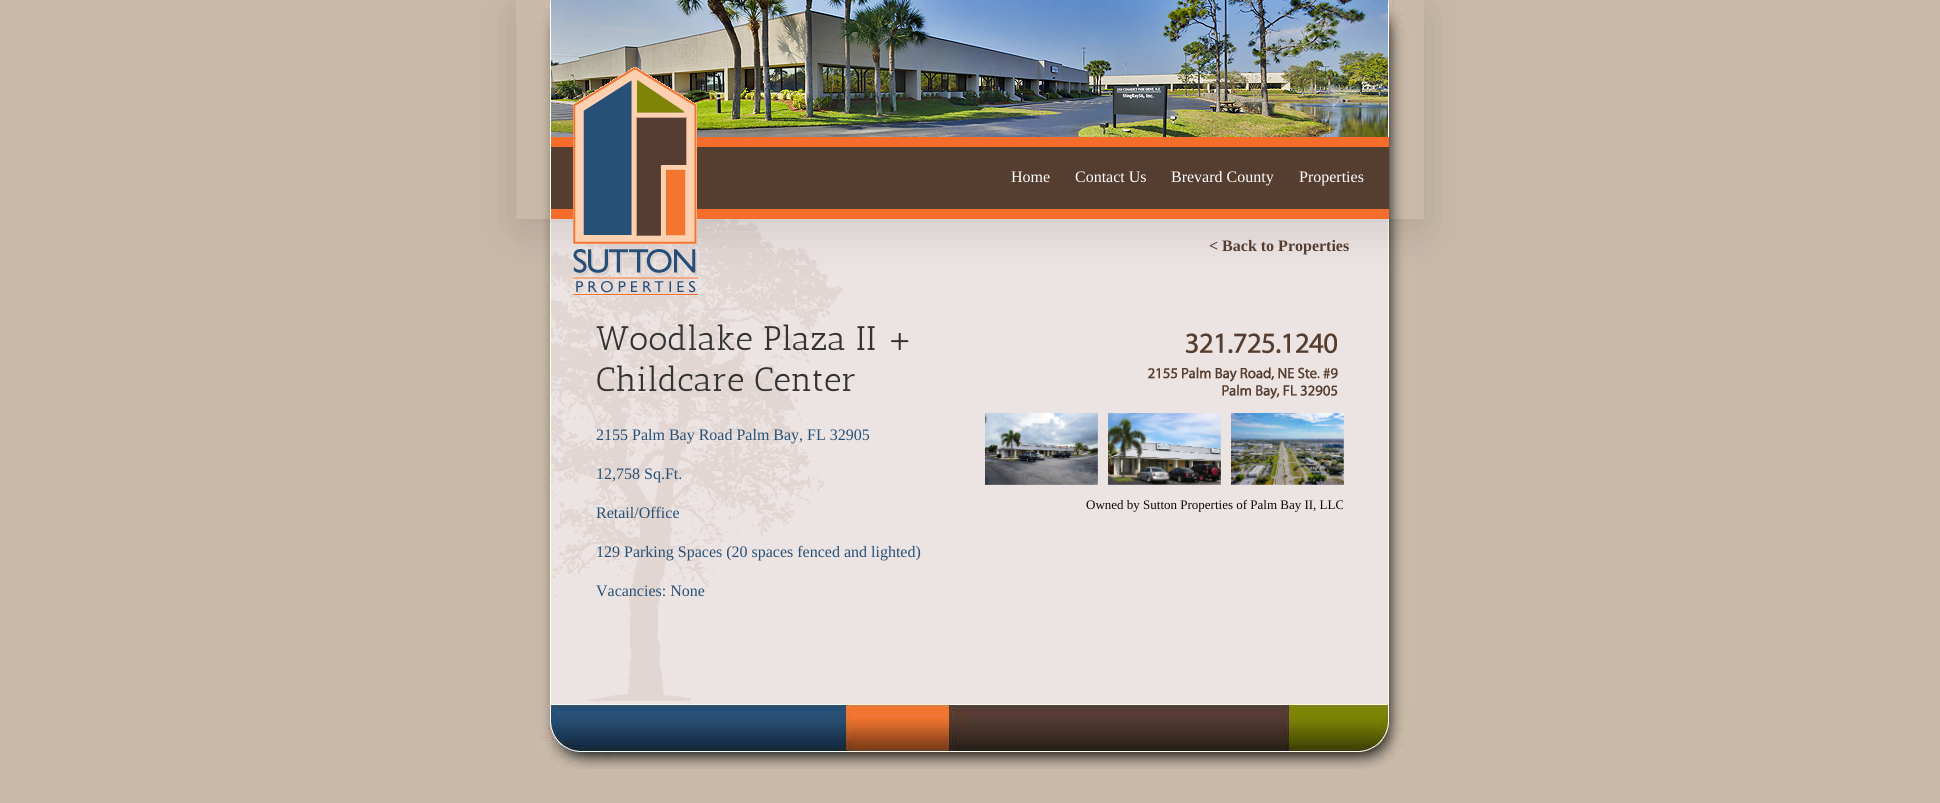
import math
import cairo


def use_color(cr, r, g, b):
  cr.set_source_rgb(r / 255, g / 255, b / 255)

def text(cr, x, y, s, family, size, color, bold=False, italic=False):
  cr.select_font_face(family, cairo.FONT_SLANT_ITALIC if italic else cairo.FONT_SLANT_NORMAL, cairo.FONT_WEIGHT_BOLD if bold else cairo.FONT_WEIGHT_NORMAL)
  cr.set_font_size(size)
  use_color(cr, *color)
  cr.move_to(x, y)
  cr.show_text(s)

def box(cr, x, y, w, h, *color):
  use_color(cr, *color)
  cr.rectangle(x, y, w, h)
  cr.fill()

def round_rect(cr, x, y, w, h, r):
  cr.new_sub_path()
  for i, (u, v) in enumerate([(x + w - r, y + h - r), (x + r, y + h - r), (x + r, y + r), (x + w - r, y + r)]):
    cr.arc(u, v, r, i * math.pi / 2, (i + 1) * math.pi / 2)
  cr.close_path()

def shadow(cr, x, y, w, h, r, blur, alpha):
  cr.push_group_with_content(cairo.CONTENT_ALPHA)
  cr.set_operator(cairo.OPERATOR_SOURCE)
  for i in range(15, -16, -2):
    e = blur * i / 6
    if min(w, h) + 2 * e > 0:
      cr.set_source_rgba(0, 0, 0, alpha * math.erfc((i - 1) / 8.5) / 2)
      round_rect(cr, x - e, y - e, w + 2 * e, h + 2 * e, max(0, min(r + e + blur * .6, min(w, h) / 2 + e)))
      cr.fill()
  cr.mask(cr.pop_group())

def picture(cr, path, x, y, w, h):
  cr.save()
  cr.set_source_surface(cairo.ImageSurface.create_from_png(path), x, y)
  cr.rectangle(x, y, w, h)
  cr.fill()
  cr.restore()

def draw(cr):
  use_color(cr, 201, 186, 168)
  cr.paint()
  picture(cr, "img_04.png", 516, 219, 908, 484)
  picture(cr, "img_05.png", 551, 219, 292, 482)
  use_color(cr, 0, 0, 0)
  shadow(cr, 518, 12, 904, 215, 0, 25, 0.14)
  picture(cr, "img_01.png", 516, 0, 908, 137)
  picture(cr, "img_02.png", 516, 137, 908, 82)
  box(cr, 551, 147, 838, 62, 85, 61, 48)
  box(cr, 551, 137, 838, 10, 245, 108, 43)
  box(cr, 551, 209, 838, 10, 245, 108, 43)
  picture(cr, "img_03.png", 573, 67, 126, 229)
  picture(cr, "img_06.png", 1148, 333, 190, 66)
  picture(cr, "img_07.png", 985, 413, 113, 72)
  picture(cr, "img_08.png", 1108, 413, 113, 72)
  picture(cr, "img_09.png", 1231, 413, 113, 72)
  picture(cr, "img_10.png", 516, 703, 908, 1)
  picture(cr, "img_11.png", 540, 704, 864, 65)
  text(cr, 1011, 182, "Home", "Liberation Serif", 16, (255, 255, 255))
  text(cr, 1075, 182, "Contact Us", "Liberation Serif", 16, (255, 255, 255))
  text(cr, 1171, 182, "Brevard County", "Liberation Serif", 16, (255, 255, 255))
  text(cr, 1299, 182, "Properties", "Liberation Serif", 16, (255, 255, 255))
  text(cr, 1209, 251, "< Back to Properties", "Liberation Serif", 16, (85, 61, 49), bold=True)
  text(cr, 596, 350, "Woodlake Plaza II +", "Antic Slab", 34, (51, 51, 51))
  text(cr, 596, 391, "Childcare Center", "Antic Slab", 34, (51, 51, 51))
  text(cr, 596, 440, "2155 Palm Bay Road Palm Bay, FL 32905", "Liberation Serif", 16, (39, 80, 119))
  text(cr, 596, 479, "12,758 Sq.Ft.", "Liberation Serif", 16, (39, 80, 119))
  text(cr, 596, 518, "Retail/Office", "Liberation Serif", 16, (39, 80, 119))
  text(cr, 596, 557, "129 Parking Spaces (20 spaces fenced and lighted)", "Liberation Serif", 16, (39, 80, 119))
  text(cr, 596, 596, "Vacancies: None", "Liberation Serif", 16, (39, 80, 119))
  text(cr, 1086, 509, "Owned by Sutton Properties of Palm Bay II, LLC", "Liberation Serif", 13, (10, 10, 10))


surface = cairo.ImageSurface(cairo.FORMAT_RGB24, 1940, 803)
cr = cairo.Context(surface)
options = cairo.FontOptions()
options.set_hint_metrics(cairo.HINT_METRICS_OFF)
options.set_hint_style(cairo.HINT_STYLE_NONE)
cr.set_font_options(options)
cr.set_miter_limit(4)
draw(cr)
surface.write_to_png("out.png")
